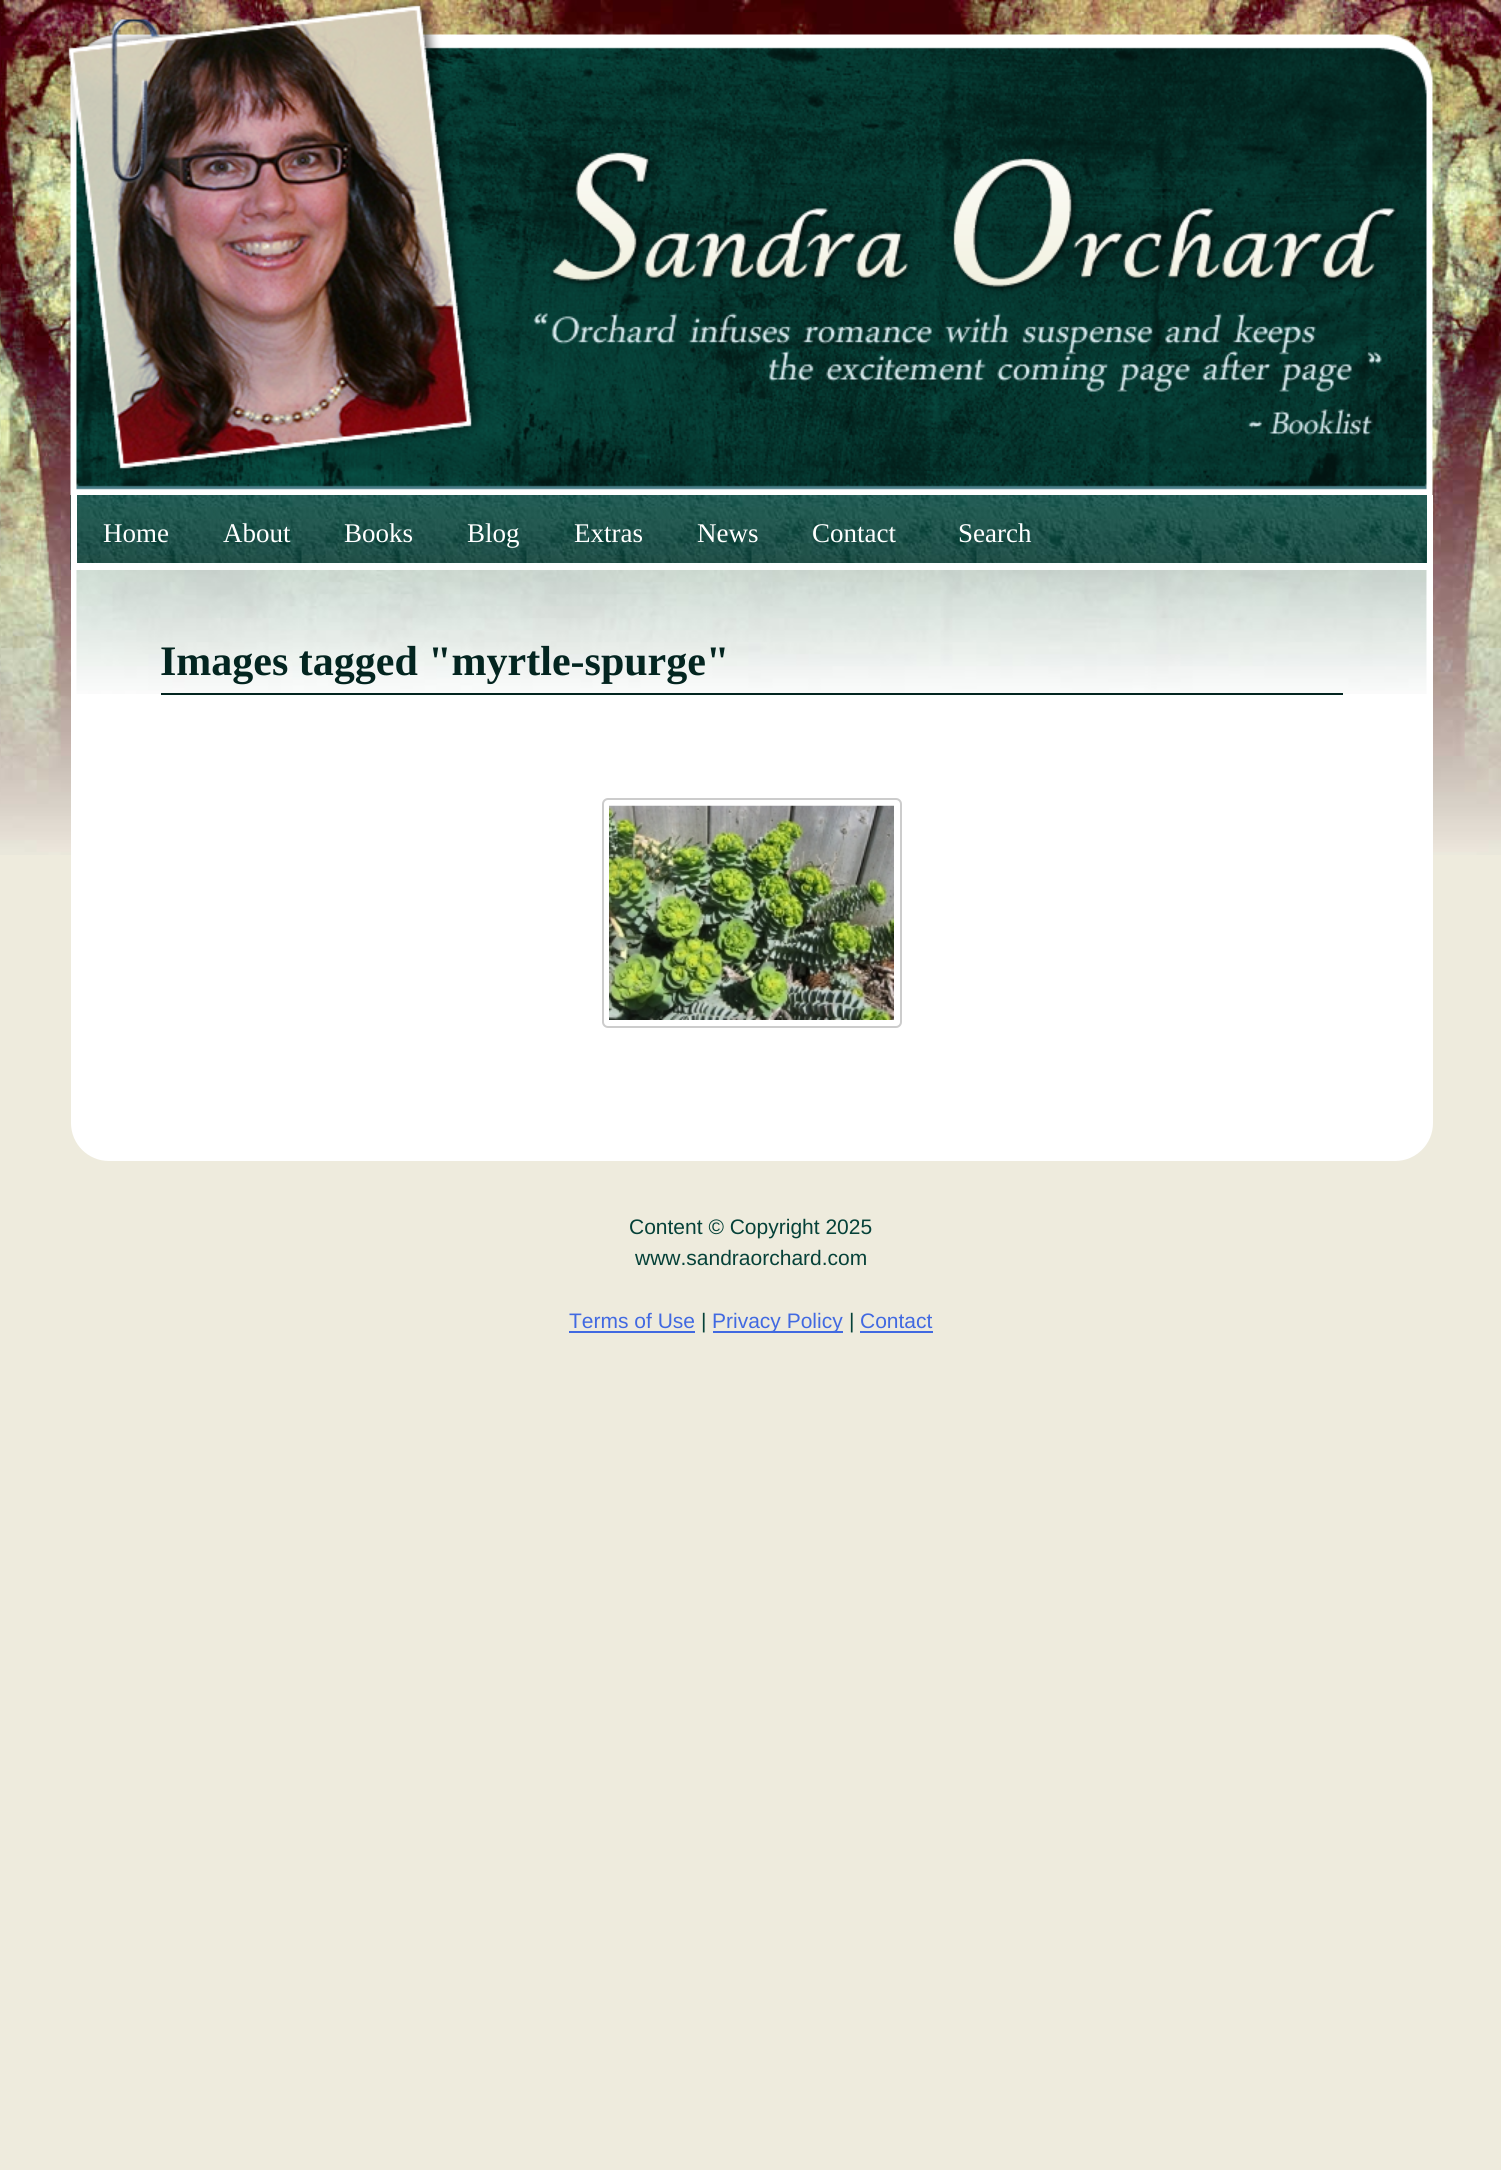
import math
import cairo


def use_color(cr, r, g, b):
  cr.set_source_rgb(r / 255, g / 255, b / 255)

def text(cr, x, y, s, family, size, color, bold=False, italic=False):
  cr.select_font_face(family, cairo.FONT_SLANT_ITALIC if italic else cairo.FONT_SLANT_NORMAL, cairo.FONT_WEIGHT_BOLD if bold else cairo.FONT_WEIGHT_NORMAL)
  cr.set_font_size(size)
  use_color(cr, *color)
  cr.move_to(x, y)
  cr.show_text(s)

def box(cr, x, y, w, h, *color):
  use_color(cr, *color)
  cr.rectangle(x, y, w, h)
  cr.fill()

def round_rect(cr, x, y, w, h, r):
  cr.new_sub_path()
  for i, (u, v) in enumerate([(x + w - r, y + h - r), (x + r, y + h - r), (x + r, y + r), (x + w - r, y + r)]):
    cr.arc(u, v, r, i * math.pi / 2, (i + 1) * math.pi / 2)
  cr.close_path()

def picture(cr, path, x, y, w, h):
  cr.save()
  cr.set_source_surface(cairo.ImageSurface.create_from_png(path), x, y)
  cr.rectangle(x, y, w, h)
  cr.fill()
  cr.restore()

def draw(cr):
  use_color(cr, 238, 235, 221)
  cr.paint()
  picture(cr, "img_01.png", 0, 0, 1501, 855)
  picture(cr, "img_02.png", 65, 0, 1368, 495)
  picture(cr, "img_03.png", 70, 495, 1357, 75)
  box(cr, 1427, 495, 6, 75, 255, 255, 255)
  box(cr, 71, 563, 1362, 7, 255, 255, 255)
  box(cr, 71, 495, 6, 75, 255, 255, 255)
  cr.new_path()
  cr.move_to(71, 570)
  cr.line_to(1433, 570)
  cr.line_to(1433, 1123)
  cr.curve_to(1433, 1144, 1416, 1161, 1395, 1161)
  cr.line_to(109, 1161)
  cr.curve_to(88, 1161, 71, 1144, 71, 1123)
  cr.close_path()
  cr.fill()
  picture(cr, "img_04.png", 76, 570, 1351, 124)
  box(cr, 161, 693, 1182, 2, 3, 37, 32)
  round_rect(cr, 603, 799, 298, 228, 5)
  use_color(cr, 204, 204, 204)
  cr.stroke()
  picture(cr, "img_05.png", 609, 805, 285, 215)
  box(cr, 569, 1331, 126, 2, 65, 105, 225)
  box(cr, 713, 1331, 130, 2, 65, 105, 225)
  box(cr, 860, 1331, 73, 2, 65, 105, 225)
  text(cr, 103, 542, "Home", "Liberation Serif", 27, (255, 255, 255))
  text(cr, 223, 542, "About", "Liberation Serif", 27, (255, 255, 255))
  text(cr, 344, 542, "Books", "Liberation Serif", 27, (255, 255, 255))
  text(cr, 467, 542, "Blog", "Liberation Serif", 27, (255, 255, 255))
  text(cr, 574, 542, "Extras", "Liberation Serif", 27, (255, 255, 255))
  text(cr, 697, 542, "News", "Liberation Serif", 27, (255, 255, 255))
  text(cr, 812, 542, "Contact", "Liberation Serif", 27, (255, 255, 255))
  text(cr, 958, 542, "Search", "Liberation Serif", 27, (255, 255, 255))
  text(cr, 160, 675, "Images tagged \"myrtle-spurge\"", "Liberation Serif", 42, (3, 37, 32), bold=True)
  text(cr, 629, 1234, "Content © Copyright 2025", "Liberation Sans", 21, (5, 65, 56))
  text(cr, 635, 1265, "www.sandraorchard.com", "Liberation Sans", 21, (5, 65, 56))
  text(cr, 569, 1328, "Terms of Use", "Liberation Sans", 21, (65, 105, 225))
  text(cr, 701, 1328, "|", "Liberation Sans", 21, (5, 65, 56))
  text(cr, 712, 1328, "Privacy Policy", "Liberation Sans", 21, (65, 105, 225))
  text(cr, 849, 1328, "|", "Liberation Sans", 21, (5, 65, 56))
  text(cr, 860, 1328, "Contact", "Liberation Sans", 21, (65, 105, 225))


surface = cairo.ImageSurface(cairo.FORMAT_RGB24, 1501, 2170)
cr = cairo.Context(surface)
options = cairo.FontOptions()
options.set_hint_metrics(cairo.HINT_METRICS_OFF)
options.set_hint_style(cairo.HINT_STYLE_NONE)
cr.set_font_options(options)
cr.set_miter_limit(4)
draw(cr)
surface.write_to_png("out.png")
